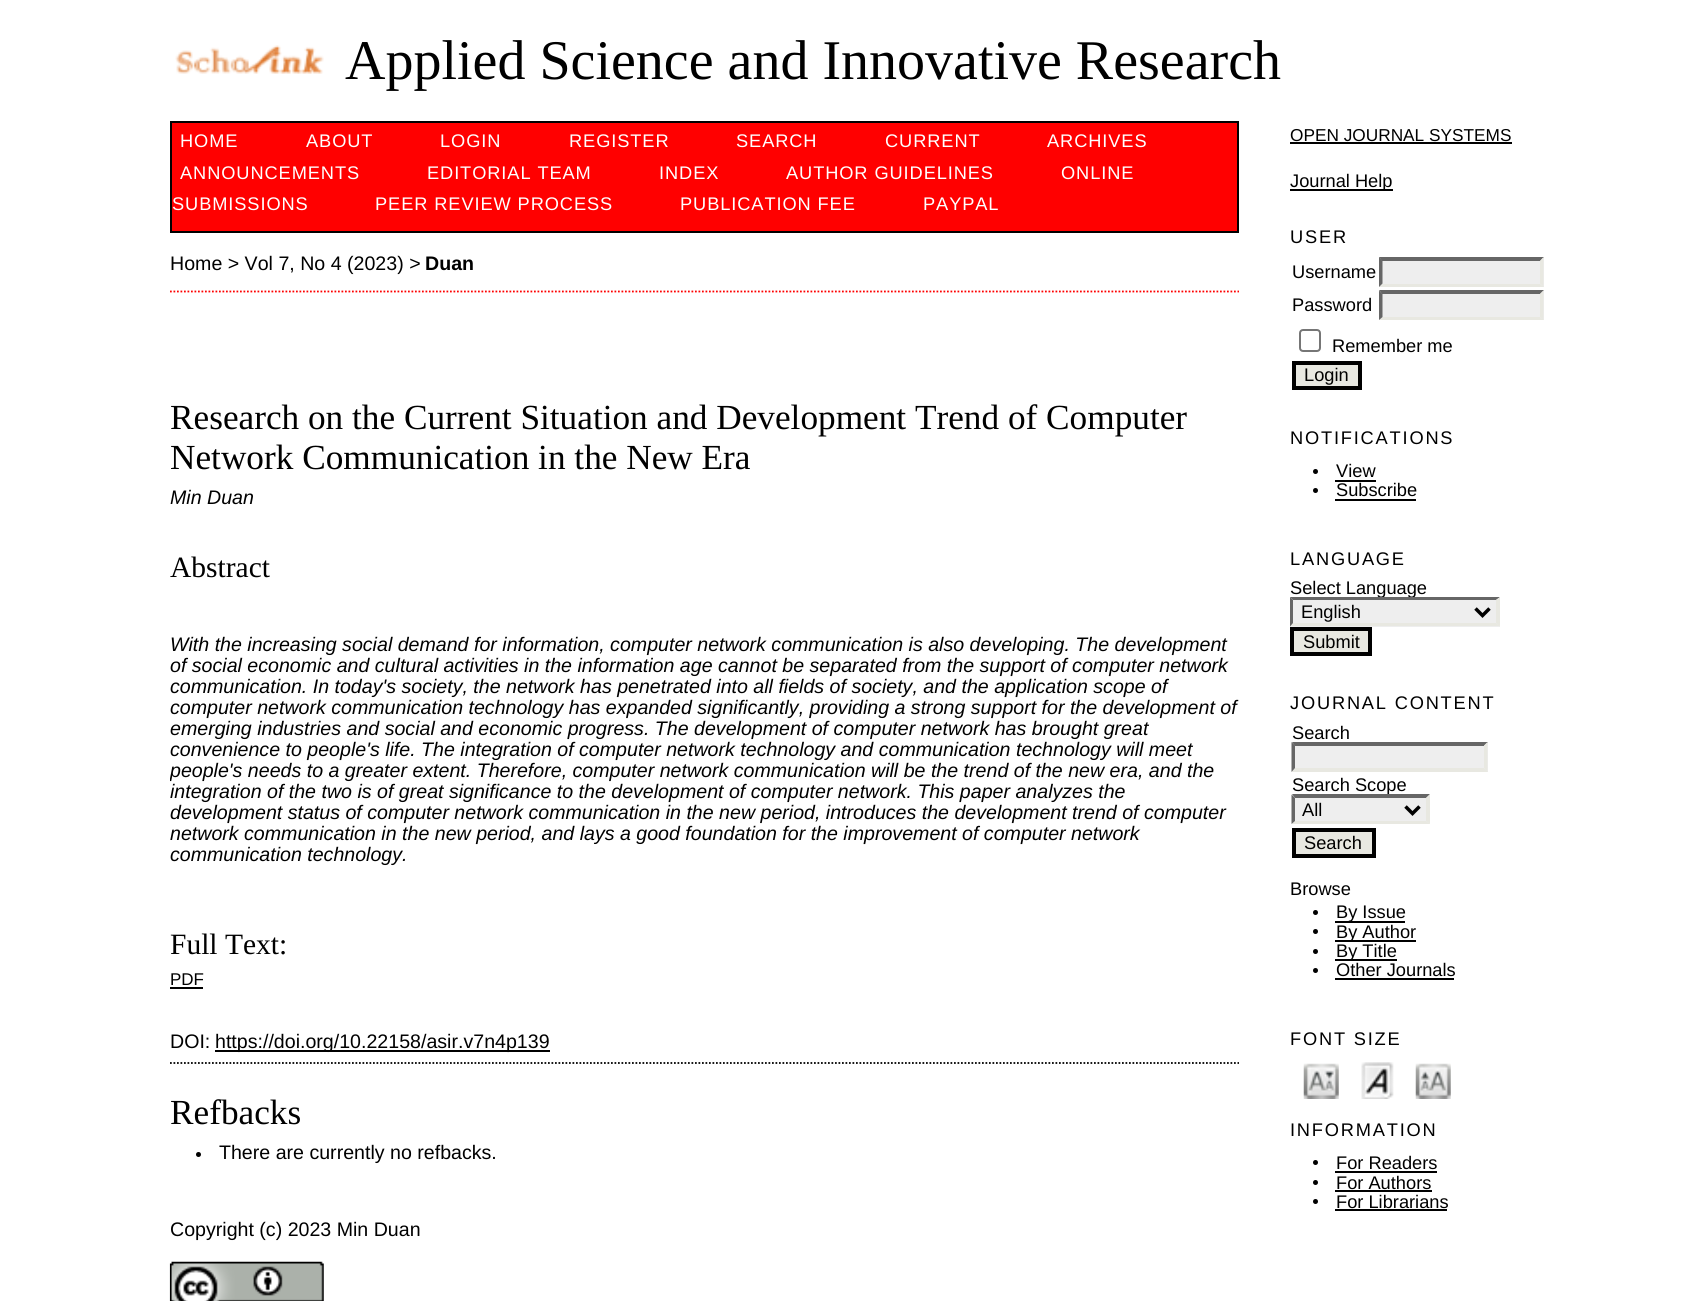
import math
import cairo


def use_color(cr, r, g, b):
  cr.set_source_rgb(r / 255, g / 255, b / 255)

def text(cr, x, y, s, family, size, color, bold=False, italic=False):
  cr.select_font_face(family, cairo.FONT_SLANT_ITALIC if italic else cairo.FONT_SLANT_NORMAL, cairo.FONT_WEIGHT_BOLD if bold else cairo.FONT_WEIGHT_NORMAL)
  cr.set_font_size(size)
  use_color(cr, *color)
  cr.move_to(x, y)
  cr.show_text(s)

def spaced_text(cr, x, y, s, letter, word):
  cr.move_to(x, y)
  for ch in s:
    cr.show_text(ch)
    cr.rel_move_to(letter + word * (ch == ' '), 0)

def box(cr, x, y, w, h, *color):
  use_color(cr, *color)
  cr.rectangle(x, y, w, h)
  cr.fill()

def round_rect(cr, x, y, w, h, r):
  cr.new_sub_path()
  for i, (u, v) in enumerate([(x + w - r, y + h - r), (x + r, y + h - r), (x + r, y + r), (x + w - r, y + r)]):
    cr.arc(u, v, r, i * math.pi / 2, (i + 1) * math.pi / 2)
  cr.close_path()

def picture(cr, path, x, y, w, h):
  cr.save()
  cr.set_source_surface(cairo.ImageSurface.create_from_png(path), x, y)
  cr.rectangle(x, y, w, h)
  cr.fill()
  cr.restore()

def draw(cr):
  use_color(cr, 255, 255, 255)
  cr.paint()
  picture(cr, "img_01.png", 175, 45, 149, 29)
  use_color(cr, 255, 0, 0)
  cr.rectangle(171, 122, 1067, 110)
  cr.fill_preserve()
  use_color(cr, 0, 0, 0)
  cr.stroke()
  cr.new_path()
  cr.move_to(170, 291.5)
  cr.line_to(1239, 291.5)
  use_color(cr, 255, 0, 0)
  cr.set_line_width(1.8)
  cr.set_dash([1.75, 1.75])
  cr.stroke()
  box(cr, 170, 987, 33, 2, 0, 0, 0)
  box(cr, 215, 1050, 335, 2, 0, 0, 0)
  cr.new_path()
  cr.move_to(170, 1063)
  cr.line_to(1239, 1063)
  cr.stroke()
  cr.arc(198.5, 1154.5, 2.5, 0, 2 * math.pi)
  cr.fill()
  picture(cr, "img_02.png", 169, 1261, 155, 40)
  box(cr, 1290, 142, 222, 2, 0, 0, 0)
  box(cr, 1290, 189, 103, 2, 0, 0, 0)
  box(cr, 1379, 257, 165, 30, 238, 238, 238)
  use_color(cr, 102, 102, 102)
  cr.new_path()
  cr.move_to(1379, 257)
  cr.line_to(1544, 257)
  cr.line_to(1540, 261)
  cr.line_to(1382, 261)
  cr.close_path()
  cr.fill()
  use_color(cr, 232, 232, 225)
  cr.new_path()
  cr.move_to(1543.5, 257)
  cr.line_to(1543.5, 287)
  cr.line_to(1540, 283.5)
  cr.line_to(1540, 261)
  cr.close_path()
  cr.fill()
  cr.new_path()
  cr.move_to(1544, 287)
  cr.line_to(1379, 287)
  cr.line_to(1382, 284)
  cr.line_to(1540, 284)
  cr.close_path()
  cr.fill()
  use_color(cr, 102, 102, 102)
  cr.new_path()
  cr.move_to(1379, 287)
  cr.line_to(1379, 257)
  cr.line_to(1382.5, 261)
  cr.line_to(1382.5, 283.5)
  cr.close_path()
  cr.fill()
  box(cr, 1379, 291, 165, 29, 238, 238, 238)
  use_color(cr, 102, 102, 102)
  cr.new_path()
  cr.move_to(1379, 290)
  cr.line_to(1544, 290)
  cr.line_to(1540, 294)
  cr.line_to(1382, 294)
  cr.close_path()
  cr.fill()
  use_color(cr, 232, 232, 225)
  cr.new_path()
  cr.move_to(1543.5, 290.5)
  cr.line_to(1543.5, 320)
  cr.line_to(1540, 317)
  cr.line_to(1540, 294)
  cr.close_path()
  cr.fill()
  cr.new_path()
  cr.move_to(1544, 320)
  cr.line_to(1379, 320)
  cr.line_to(1382, 317)
  cr.line_to(1540, 317)
  cr.close_path()
  cr.fill()
  use_color(cr, 102, 102, 102)
  cr.new_path()
  cr.move_to(1379, 320)
  cr.line_to(1379, 290.5)
  cr.line_to(1382.5, 294)
  cr.line_to(1382.5, 317)
  cr.close_path()
  cr.fill()
  round_rect(cr, 1300, 330, 20, 21, 3)
  use_color(cr, 118, 118, 118)
  cr.set_line_width(2)
  cr.set_dash([])
  cr.stroke()
  use_color(cr, 232, 232, 225)
  cr.rectangle(1294, 363, 66, 25)
  cr.fill_preserve()
  use_color(cr, 0, 0, 0)
  cr.set_line_width(4)
  cr.stroke()
  cr.arc(1315.5, 471.5, 2.5, 0, 2 * math.pi)
  cr.fill()
  box(cr, 1335, 480, 41, 2, 0, 0, 0)
  cr.arc(1315.5, 490.5, 2.5, 0, 2 * math.pi)
  cr.fill()
  box(cr, 1335, 499, 81, 2, 0, 0, 0)
  use_color(cr, 232, 232, 225)
  cr.rectangle(1292, 629, 78, 25)
  cr.fill_preserve()
  use_color(cr, 0, 0, 0)
  cr.stroke()
  box(cr, 1292, 742, 196, 30, 238, 238, 238)
  use_color(cr, 102, 102, 102)
  cr.new_path()
  cr.move_to(1292, 742)
  cr.line_to(1488, 742)
  cr.line_to(1484, 746)
  cr.line_to(1295, 746)
  cr.close_path()
  cr.fill()
  use_color(cr, 232, 232, 225)
  cr.new_path()
  cr.move_to(1487.5, 742)
  cr.line_to(1487.5, 772)
  cr.line_to(1484, 768)
  cr.line_to(1484, 745.5)
  cr.close_path()
  cr.fill()
  cr.new_path()
  cr.move_to(1488, 772)
  cr.line_to(1292, 772)
  cr.line_to(1295, 768)
  cr.line_to(1484, 768)
  cr.close_path()
  cr.fill()
  use_color(cr, 102, 102, 102)
  cr.new_path()
  cr.move_to(1291.5, 772)
  cr.line_to(1291.5, 742)
  cr.line_to(1295, 745.5)
  cr.line_to(1295, 768)
  cr.close_path()
  cr.fill()
  box(cr, 1292, 795, 138, 29, 238, 238, 238)
  cr.new_path()
  cr.move_to(1405.5, 806.5)
  cr.line_to(1412.5, 813.5)
  cr.line_to(1419.5, 806.5)
  use_color(cr, 0, 0, 0)
  cr.set_line_width(3.5)
  cr.stroke()
  use_color(cr, 232, 232, 225)
  cr.rectangle(1294, 830, 80, 26)
  cr.fill_preserve()
  use_color(cr, 0, 0, 0)
  cr.set_line_width(4)
  cr.stroke()
  cr.arc(1315.5, 912.5, 2.5, 0, 2 * math.pi)
  cr.fill()
  box(cr, 1335, 921, 70, 2, 0, 0, 0)
  cr.arc(1315.5, 931.5, 2.5, 0, 2 * math.pi)
  cr.fill()
  box(cr, 1335, 940, 81, 2, 0, 0, 0)
  cr.arc(1315.5, 951.5, 2.5, 0, 2 * math.pi)
  cr.fill()
  box(cr, 1335, 959, 62, 2, 0, 0, 0)
  cr.arc(1315.5, 970.5, 2.5, 0, 2 * math.pi)
  cr.fill()
  box(cr, 1335, 978, 119, 2, 0, 0, 0)
  picture(cr, "img_03.png", 1303, 1063, 36, 36)
  picture(cr, "img_04.png", 1361, 1062, 33, 37)
  picture(cr, "img_05.png", 1415, 1063, 36, 36)
  cr.arc(1315.5, 1162.5, 2.5, 0, 2 * math.pi)
  cr.fill()
  box(cr, 1335, 1171, 102, 2, 0, 0, 0)
  cr.arc(1315.5, 1182.5, 2.5, 0, 2 * math.pi)
  cr.fill()
  box(cr, 1335, 1190, 97, 2, 0, 0, 0)
  cr.arc(1315.5, 1201.5, 2.5, 0, 2 * math.pi)
  cr.fill()
  box(cr, 1335, 1209, 112, 2, 0, 0, 0)
  text(cr, 345, 79, "Applied Science and Innovative Research", "Liberation Serif", 56, (0, 0, 0))
  cr.select_font_face("Liberation Sans")
  cr.set_font_size(18.25)
  use_color(cr, 255, 255, 255)
  spaced_text(cr, 180, 147, "HOME", 0.9, 0)
  spaced_text(cr, 306, 147, "ABOUT", 0.9, 0)
  spaced_text(cr, 440, 147, "LOGIN", 0.9, 0)
  spaced_text(cr, 569, 147, "REGISTER", 0.9, 0)
  spaced_text(cr, 736, 147, "SEARCH", 0.9, 0)
  spaced_text(cr, 885, 147, "CURRENT", 0.9, 0)
  spaced_text(cr, 1047, 147, "ARCHIVES", 0.9, 0)
  spaced_text(cr, 180, 179, "ANNOUNCEMENTS", 0.9, 0)
  spaced_text(cr, 427, 179, "EDITORIAL TEAM", 0.9, 0)
  spaced_text(cr, 659, 179, "INDEX", 0.9, 0)
  spaced_text(cr, 786, 179, "AUTHOR GUIDELINES", 0.9, 0)
  spaced_text(cr, 1061, 179, "ONLINE", 0.9, 0)
  spaced_text(cr, 172, 210, "SUBMISSIONS", 0.9, 0)
  spaced_text(cr, 375, 210, "PEER REVIEW PROCESS", 0.9, 0)
  spaced_text(cr, 680, 210, "PUBLICATION FEE", 0.9, 0)
  spaced_text(cr, 923, 210, "PAYPAL", 0.9, 0)
  text(cr, 170, 270, "Home > Vol 7, No 4 (2023) >", "Liberation Sans", 19.6, (0, 0, 0))
  text(cr, 425, 270, "Duan", "Liberation Sans", 19.6, (0, 0, 0), bold=True)
  text(cr, 170, 429, "Research on the Current Situation and Development Trend of Computer", "Liberation Serif", 35.25, (0, 0, 0))
  text(cr, 170, 469, "Network Communication in the New Era", "Liberation Serif", 35.25, (0, 0, 0))
  text(cr, 170, 504, "Min Duan", "Liberation Sans", 19.6, (0, 0, 0), italic=True)
  text(cr, 170, 577, "Abstract", "Liberation Serif", 29.5, (0, 0, 0))
  text(cr, 170, 651, "With the increasing social demand for information, computer network communication is also developing. The development", "Liberation Sans", 19.6, (0, 0, 0), italic=True)
  text(cr, 170, 672, "of social economic and cultural activities in the information age cannot be separated from the support of computer network", "Liberation Sans", 19.6, (0, 0, 0), italic=True)
  text(cr, 170, 693, "communication. In today's society, the network has penetrated into all fields of society, and the application scope of", "Liberation Sans", 19.6, (0, 0, 0), italic=True)
  text(cr, 170, 714, "computer network communication technology has expanded significantly, providing a strong support for the development of", "Liberation Sans", 19.6, (0, 0, 0), italic=True)
  text(cr, 170, 735, "emerging industries and social and economic progress. The development of computer network has brought great", "Liberation Sans", 19.6, (0, 0, 0), italic=True)
  text(cr, 170, 756, "convenience to people's life. The integration of computer network technology and communication technology will meet", "Liberation Sans", 19.6, (0, 0, 0), italic=True)
  cr.save()
  cr.rectangle(170, 107, 1069, 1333)
  cr.clip()
  text(cr, 170, 777, "people's needs to a greater extent. Therefore, computer network communication will be the trend of the new era, and the", "Liberation Sans", 19.6, (0, 0, 0), italic=True)
  cr.restore()
  text(cr, 170, 798, "integration of the two is of great significance to the development of computer network. This paper analyzes the", "Liberation Sans", 19.6, (0, 0, 0), italic=True)
  text(cr, 170, 819, "development status of computer network communication in the new period, introduces the development trend of computer", "Liberation Sans", 19.6, (0, 0, 0), italic=True)
  text(cr, 170, 840, "network communication in the new period, and lays a good foundation for the improvement of computer network", "Liberation Sans", 19.6, (0, 0, 0), italic=True)
  text(cr, 170, 861, "communication technology.", "Liberation Sans", 19.6, (0, 0, 0), italic=True)
  text(cr, 170, 954, "Full Text:", "Liberation Serif", 29.5, (0, 0, 0))
  text(cr, 170, 985, "PDF", "Liberation Sans", 17, (0, 0, 0))
  text(cr, 170, 1048, "DOI:", "Liberation Sans", 19.6, (0, 0, 0))
  text(cr, 215, 1048, "https://doi.org/10.22158/asir.v7n4p139", "Liberation Sans", 19.6, (0, 0, 0))
  text(cr, 170, 1124, "Refbacks", "Liberation Serif", 35.25, (0, 0, 0))
  text(cr, 219, 1159, "There are currently no refbacks.", "Liberation Sans", 19.6, (0, 0, 0))
  text(cr, 170, 1236, "Copyright (c) 2023 Min Duan", "Liberation Sans", 19.6, (0, 0, 0))
  text(cr, 1290, 141, "OPEN JOURNAL SYSTEMS", "Liberation Sans", 17.25, (0, 0, 0))
  text(cr, 1290, 187, "Journal Help", "Liberation Sans", 18.25, (0, 0, 0))
  spaced_text(cr, 1290, 243, "USER", 1.8, 0)
  text(cr, 1292, 278, "Username", "Liberation Sans", 18.25, (0, 0, 0))
  text(cr, 1292, 311, "Password", "Liberation Sans", 18.25, (0, 0, 0))
  text(cr, 1332, 352, "Remember me", "Liberation Sans", 18.25, (0, 0, 0))
  text(cr, 1304, 381, "Login", "Liberation Sans", 18.25, (0, 0, 0))
  spaced_text(cr, 1290, 444, "NOTIFICATIONS", 1.8, 0)
  text(cr, 1336, 477, "View", "Liberation Sans", 18.25, (0, 0, 0))
  text(cr, 1336, 496, "Subscribe", "Liberation Sans", 18.25, (0, 0, 0))
  spaced_text(cr, 1290, 565, "LANGUAGE", 1.8, 0)
  text(cr, 1290, 594, "Select Language", "Liberation Sans", 18.25, (0, 0, 0))
  box(cr, 1290, 597, 210, 30, 238, 238, 238)
  use_color(cr, 102, 102, 102)
  cr.new_path()
  cr.move_to(1290, 597)
  cr.line_to(1500, 597)
  cr.line_to(1496, 600)
  cr.line_to(1293, 600)
  cr.close_path()
  cr.fill()
  use_color(cr, 232, 232, 225)
  cr.new_path()
  cr.move_to(1500, 597)
  cr.line_to(1500, 626.5)
  cr.line_to(1496, 623)
  cr.line_to(1496, 600)
  cr.close_path()
  cr.fill()
  cr.new_path()
  cr.move_to(1500, 626)
  cr.line_to(1290, 626)
  cr.line_to(1293, 623)
  cr.line_to(1496, 623)
  cr.close_path()
  cr.fill()
  use_color(cr, 102, 102, 102)
  cr.new_path()
  cr.move_to(1290, 626.5)
  cr.line_to(1290, 597)
  cr.line_to(1293, 600)
  cr.line_to(1293, 623)
  cr.close_path()
  cr.fill()
  cr.new_path()
  cr.move_to(1475.5, 608.5)
  cr.line_to(1482.5, 615.5)
  cr.line_to(1489.5, 608.5)
  use_color(cr, 0, 0, 0)
  cr.set_line_width(3.5)
  cr.stroke()
  text(cr, 1301, 618, "English", "Liberation Sans", 18.25, (0, 0, 0))
  text(cr, 1303, 648, "Submit", "Liberation Sans", 18.25, (0, 0, 0))
  spaced_text(cr, 1290, 709, "JOURNAL CONTENT", 1.8, 0)
  text(cr, 1292, 739, "Search", "Liberation Sans", 18.25, (0, 0, 0))
  text(cr, 1292, 791, "Search Scope", "Liberation Sans", 18.25, (0, 0, 0))
  use_color(cr, 102, 102, 102)
  cr.new_path()
  cr.move_to(1292, 794)
  cr.line_to(1430, 794)
  cr.line_to(1426, 798)
  cr.line_to(1295, 798)
  cr.close_path()
  cr.fill()
  use_color(cr, 232, 232, 225)
  cr.new_path()
  cr.move_to(1430, 794.5)
  cr.line_to(1430, 824)
  cr.line_to(1426, 821)
  cr.line_to(1426, 798)
  cr.close_path()
  cr.fill()
  cr.new_path()
  cr.move_to(1430, 824)
  cr.line_to(1292, 824)
  cr.line_to(1295, 821)
  cr.line_to(1426, 821)
  cr.close_path()
  cr.fill()
  use_color(cr, 102, 102, 102)
  cr.new_path()
  cr.move_to(1291.5, 824)
  cr.line_to(1291.5, 794.5)
  cr.line_to(1295, 798)
  cr.line_to(1295, 821)
  cr.close_path()
  cr.fill()
  text(cr, 1302, 816, "All", "Liberation Sans", 18.25, (0, 0, 0))
  text(cr, 1304, 849, "Search", "Liberation Sans", 18.25, (0, 0, 0))
  text(cr, 1290, 895, "Browse", "Liberation Sans", 18.25, (0, 0, 0))
  text(cr, 1336, 918, "By Issue", "Liberation Sans", 18.25, (0, 0, 0))
  text(cr, 1336, 938, "By Author", "Liberation Sans", 18.25, (0, 0, 0))
  text(cr, 1336, 957, "By Title", "Liberation Sans", 18.25, (0, 0, 0))
  text(cr, 1336, 976, "Other Journals", "Liberation Sans", 18.25, (0, 0, 0))
  spaced_text(cr, 1290, 1045, "FONT SIZE", 1.8, 0)
  spaced_text(cr, 1290, 1136, "INFORMATION", 1.8, 0)
  text(cr, 1336, 1169, "For Readers", "Liberation Sans", 18.25, (0, 0, 0))
  text(cr, 1336, 1189, "For Authors", "Liberation Sans", 18.25, (0, 0, 0))
  text(cr, 1336, 1208, "For Librarians", "Liberation Sans", 18.25, (0, 0, 0))


surface = cairo.ImageSurface(cairo.FORMAT_RGB24, 1697, 1301)
cr = cairo.Context(surface)
options = cairo.FontOptions()
options.set_hint_metrics(cairo.HINT_METRICS_OFF)
options.set_hint_style(cairo.HINT_STYLE_NONE)
cr.set_font_options(options)
cr.set_miter_limit(4)
draw(cr)
surface.write_to_png("out.png")
